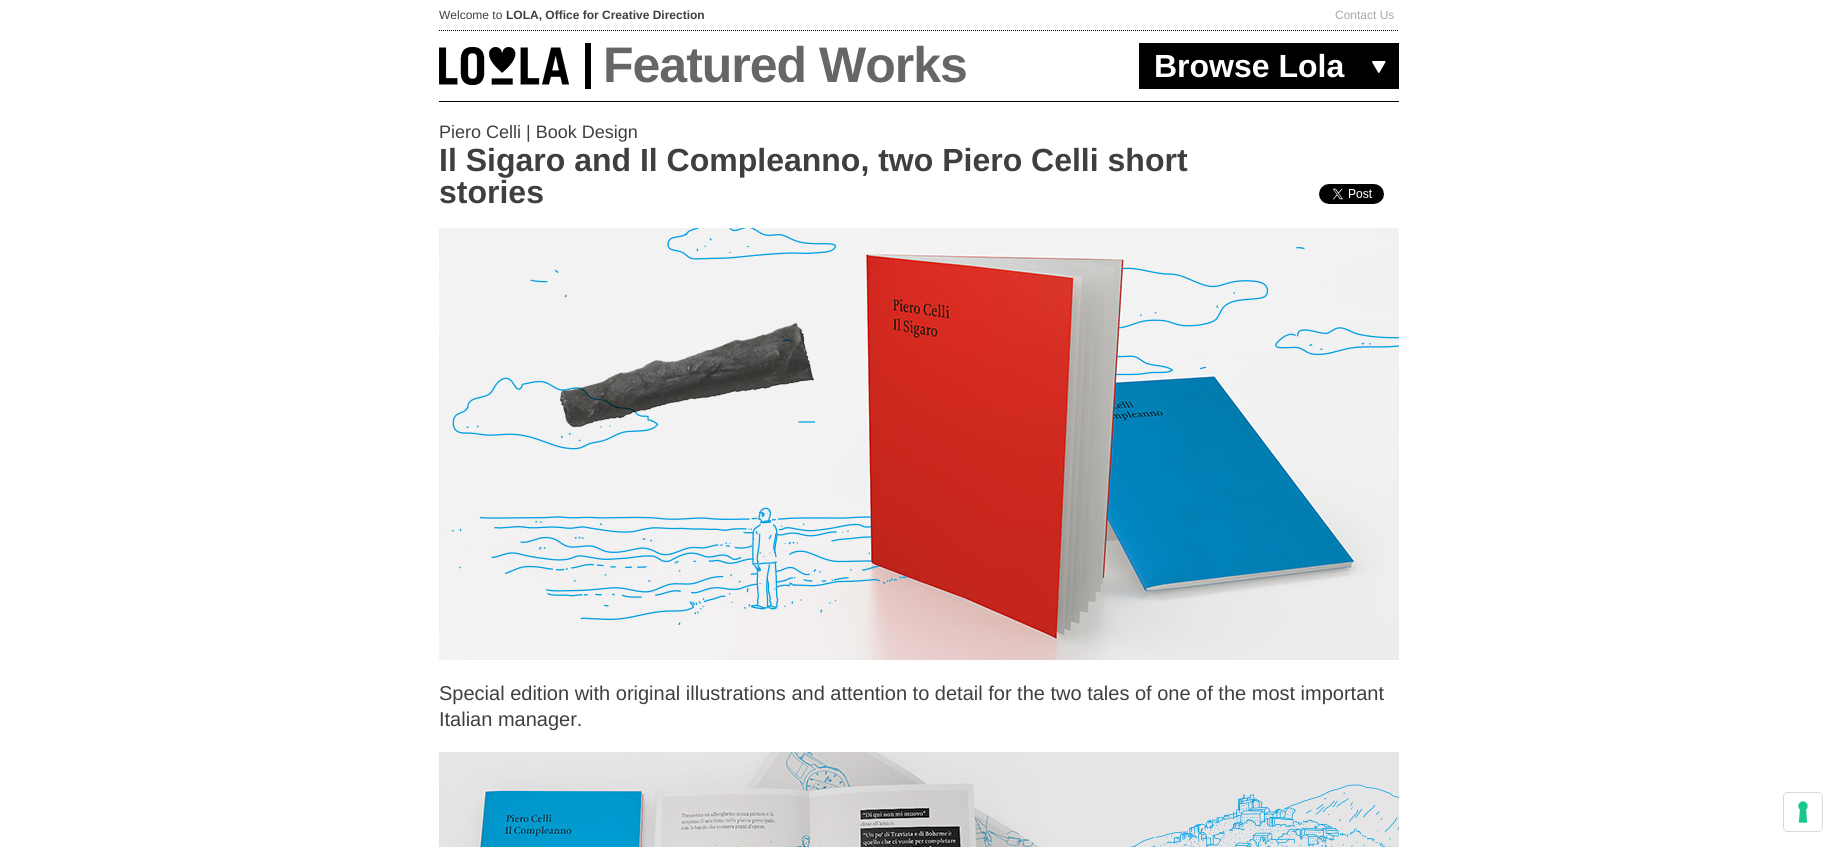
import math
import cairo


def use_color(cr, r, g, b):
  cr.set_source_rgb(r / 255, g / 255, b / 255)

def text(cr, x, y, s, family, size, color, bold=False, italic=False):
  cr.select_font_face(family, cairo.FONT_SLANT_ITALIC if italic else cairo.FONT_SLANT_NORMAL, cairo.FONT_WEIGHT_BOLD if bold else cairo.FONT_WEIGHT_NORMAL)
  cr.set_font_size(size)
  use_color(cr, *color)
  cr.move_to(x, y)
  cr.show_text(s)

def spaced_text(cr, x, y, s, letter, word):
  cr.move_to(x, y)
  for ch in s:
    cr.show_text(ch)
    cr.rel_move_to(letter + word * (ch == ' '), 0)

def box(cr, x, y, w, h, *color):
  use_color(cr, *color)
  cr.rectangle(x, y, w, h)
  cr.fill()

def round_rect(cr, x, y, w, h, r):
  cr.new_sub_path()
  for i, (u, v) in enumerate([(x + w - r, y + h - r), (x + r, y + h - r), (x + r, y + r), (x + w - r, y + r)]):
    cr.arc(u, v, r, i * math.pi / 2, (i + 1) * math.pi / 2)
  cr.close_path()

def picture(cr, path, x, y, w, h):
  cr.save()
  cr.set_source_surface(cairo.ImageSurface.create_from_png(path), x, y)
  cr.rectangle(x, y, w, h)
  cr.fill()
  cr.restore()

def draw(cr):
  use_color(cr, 255, 255, 255)
  cr.paint()
  cr.new_path()
  cr.move_to(439, 30.5)
  cr.line_to(1399, 30.5)
  use_color(cr, 0, 0, 0)
  cr.set_line_width(1)
  cr.set_dash([1, 1])
  cr.stroke()
  box(cr, 439, 101, 960, 1, 0, 0, 0)
  box(cr, 585, 43, 6, 46, 0, 0, 0)
  picture(cr, "img_01.png", 439, 47, 130, 38)
  box(cr, 1139, 43, 260, 46, 0, 0, 0)
  picture(cr, "img_02.png", 1372, 61, 14, 12)
  picture(cr, "img_03.png", 1319, 184, 65, 20)
  picture(cr, "img_04.png", 439, 228, 960, 432)
  picture(cr, "img_05.png", 439, 752, 960, 95)
  round_rect(cr, 1783.5, 792.5, 39, 39, 4.5)
  use_color(cr, 217, 217, 217)
  cr.set_dash([])
  cr.stroke()
  use_color(cr, 255, 255, 255)
  round_rect(cr, 1784, 793, 38, 38, 4)
  cr.fill()
  picture(cr, "img_06.png", 1798, 801, 10, 22)
  text(cr, 439, 19, "Welcome to", "Liberation Sans", 12, (63, 63, 63))
  text(cr, 506, 19, "LOLA, Office for Creative Direction", "Liberation Sans", 12, (63, 63, 63), bold=True)
  text(cr, 1335, 19, "Contact Us", "Liberation Sans", 12, (168, 168, 168))
  cr.select_font_face("Liberation Sans", cairo.FONT_SLANT_NORMAL, cairo.FONT_WEIGHT_BOLD)
  cr.set_font_size(50)
  use_color(cr, 102, 102, 102)
  spaced_text(cr, 603, 82, "Featured Works", -1, 0)
  text(cr, 1154, 77, "Browse Lola", "Liberation Sans", 32, (255, 255, 255), bold=True)
  text(cr, 439, 138, "Piero Celli | Book Design", "Liberation Sans", 18, (63, 63, 63))
  text(cr, 439, 171, "Il Sigaro and Il Compleanno, two Piero Celli short", "Liberation Sans", 32, (63, 63, 63), bold=True)
  text(cr, 439, 203, "stories", "Liberation Sans", 32, (63, 63, 63), bold=True)
  text(cr, 439, 700, "Special edition with original illustrations and attention to detail for the two tales of one of the most important", "Liberation Sans", 20, (63, 63, 63))
  text(cr, 439, 726, "Italian manager.", "Liberation Sans", 20, (63, 63, 63))


surface = cairo.ImageSurface(cairo.FORMAT_RGB24, 1838, 847)
cr = cairo.Context(surface)
options = cairo.FontOptions()
options.set_hint_metrics(cairo.HINT_METRICS_OFF)
options.set_hint_style(cairo.HINT_STYLE_NONE)
cr.set_font_options(options)
cr.set_miter_limit(4)
draw(cr)
surface.write_to_png("out.png")
